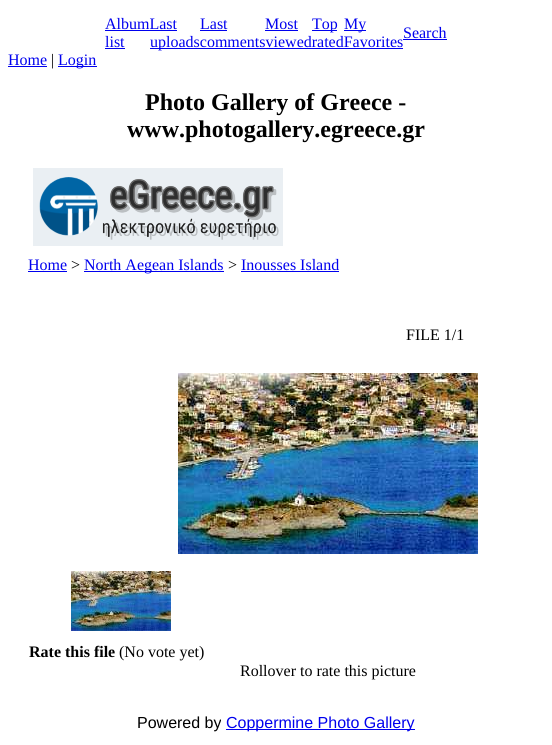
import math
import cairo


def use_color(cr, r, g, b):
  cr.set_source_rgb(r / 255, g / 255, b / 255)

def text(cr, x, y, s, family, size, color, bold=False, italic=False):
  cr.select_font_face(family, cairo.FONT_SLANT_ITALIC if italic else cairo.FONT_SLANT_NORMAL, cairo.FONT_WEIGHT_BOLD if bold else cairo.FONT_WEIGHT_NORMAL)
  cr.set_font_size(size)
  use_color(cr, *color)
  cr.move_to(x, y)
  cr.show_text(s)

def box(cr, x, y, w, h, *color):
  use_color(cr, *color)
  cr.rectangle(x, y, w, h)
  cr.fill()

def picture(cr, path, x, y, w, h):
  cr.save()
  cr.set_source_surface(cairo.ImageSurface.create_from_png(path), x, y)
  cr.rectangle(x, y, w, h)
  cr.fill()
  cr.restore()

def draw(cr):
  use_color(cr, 255, 255, 255)
  cr.paint()
  box(cr, 105, 30, 72, 1, 0, 0, 238)
  box(cr, 105, 48, 20, 1, 0, 0, 238)
  box(cr, 200, 30, 27, 1, 0, 0, 238)
  box(cr, 265, 30, 33, 1, 0, 0, 238)
  box(cr, 312, 30, 25, 1, 0, 0, 238)
  box(cr, 344, 30, 22, 1, 0, 0, 238)
  box(cr, 403, 39, 44, 1, 0, 0, 238)
  box(cr, 150, 48, 253, 1, 0, 0, 238)
  box(cr, 8, 66, 39, 1, 0, 0, 238)
  box(cr, 58, 66, 39, 1, 0, 0, 238)
  box(cr, 33, 168, 250, 78, 234, 239, 243)
  picture(cr, "img_01.png", 39, 177, 240, 63)
  box(cr, 28, 271, 39, 1, 0, 0, 238)
  box(cr, 84, 271, 140, 1, 0, 0, 238)
  box(cr, 241, 271, 98, 1, 0, 0, 238)
  picture(cr, "img_02.png", 178, 373, 300, 181)
  picture(cr, "img_03.png", 71, 571, 100, 60)
  box(cr, 226, 729, 189, 1, 0, 0, 238)
  text(cr, 105, 29, "AlbumLast", "Liberation Serif", 16, (0, 0, 238))
  text(cr, 105, 47, "list", "Liberation Serif", 16, (0, 0, 238))
  text(cr, 200, 29, "Last", "Liberation Serif", 16, (0, 0, 238))
  text(cr, 265, 29, "Most", "Liberation Serif", 16, (0, 0, 238))
  text(cr, 312, 29, "Top", "Liberation Serif", 16, (0, 0, 238))
  text(cr, 344, 29, "My", "Liberation Serif", 16, (0, 0, 238))
  text(cr, 403, 38, "Search", "Liberation Serif", 16, (0, 0, 238))
  text(cr, 150, 47, "uploadscommentsviewedratedFavorites", "Liberation Serif", 16, (0, 0, 238))
  text(cr, 8, 65, "Home", "Liberation Serif", 16, (0, 0, 238))
  text(cr, 51, 65, "|", "Liberation Serif", 16, (0, 0, 0))
  text(cr, 58, 65, "Login", "Liberation Serif", 16, (0, 0, 238))
  text(cr, 145, 110, "Photo Gallery of Greece -", "Liberation Serif", 24, (0, 0, 0), bold=True)
  text(cr, 127, 137, "www.photogallery.egreece.gr", "Liberation Serif", 24, (0, 0, 0), bold=True)
  text(cr, 28, 270, "Home", "Liberation Serif", 16, (0, 0, 238))
  text(cr, 71, 270, ">", "Liberation Serif", 16, (0, 0, 0))
  text(cr, 84, 270, "North Aegean Islands", "Liberation Serif", 16, (0, 0, 238))
  text(cr, 228, 270, ">", "Liberation Serif", 16, (0, 0, 0))
  text(cr, 241, 270, "Inousses Island", "Liberation Serif", 16, (0, 0, 238))
  text(cr, 406, 340, "FILE 1/1", "Liberation Serif", 16, (0, 0, 0))
  text(cr, 29, 657, "Rate this file", "Liberation Serif", 16, (0, 0, 0), bold=True)
  text(cr, 119, 657, "(No vote yet)", "Liberation Serif", 16, (0, 0, 0))
  text(cr, 240, 676, "Rollover to rate this picture", "Liberation Serif", 16, (0, 0, 0))
  text(cr, 137, 728, "Powered by", "Liberation Sans", 16, (0, 0, 0))
  text(cr, 226, 728, "Coppermine Photo Gallery", "Liberation Sans", 16, (0, 0, 238))


surface = cairo.ImageSurface(cairo.FORMAT_RGB24, 552, 745)
cr = cairo.Context(surface)
options = cairo.FontOptions()
options.set_hint_metrics(cairo.HINT_METRICS_OFF)
options.set_hint_style(cairo.HINT_STYLE_NONE)
cr.set_font_options(options)
cr.set_miter_limit(4)
draw(cr)
surface.write_to_png("out.png")
